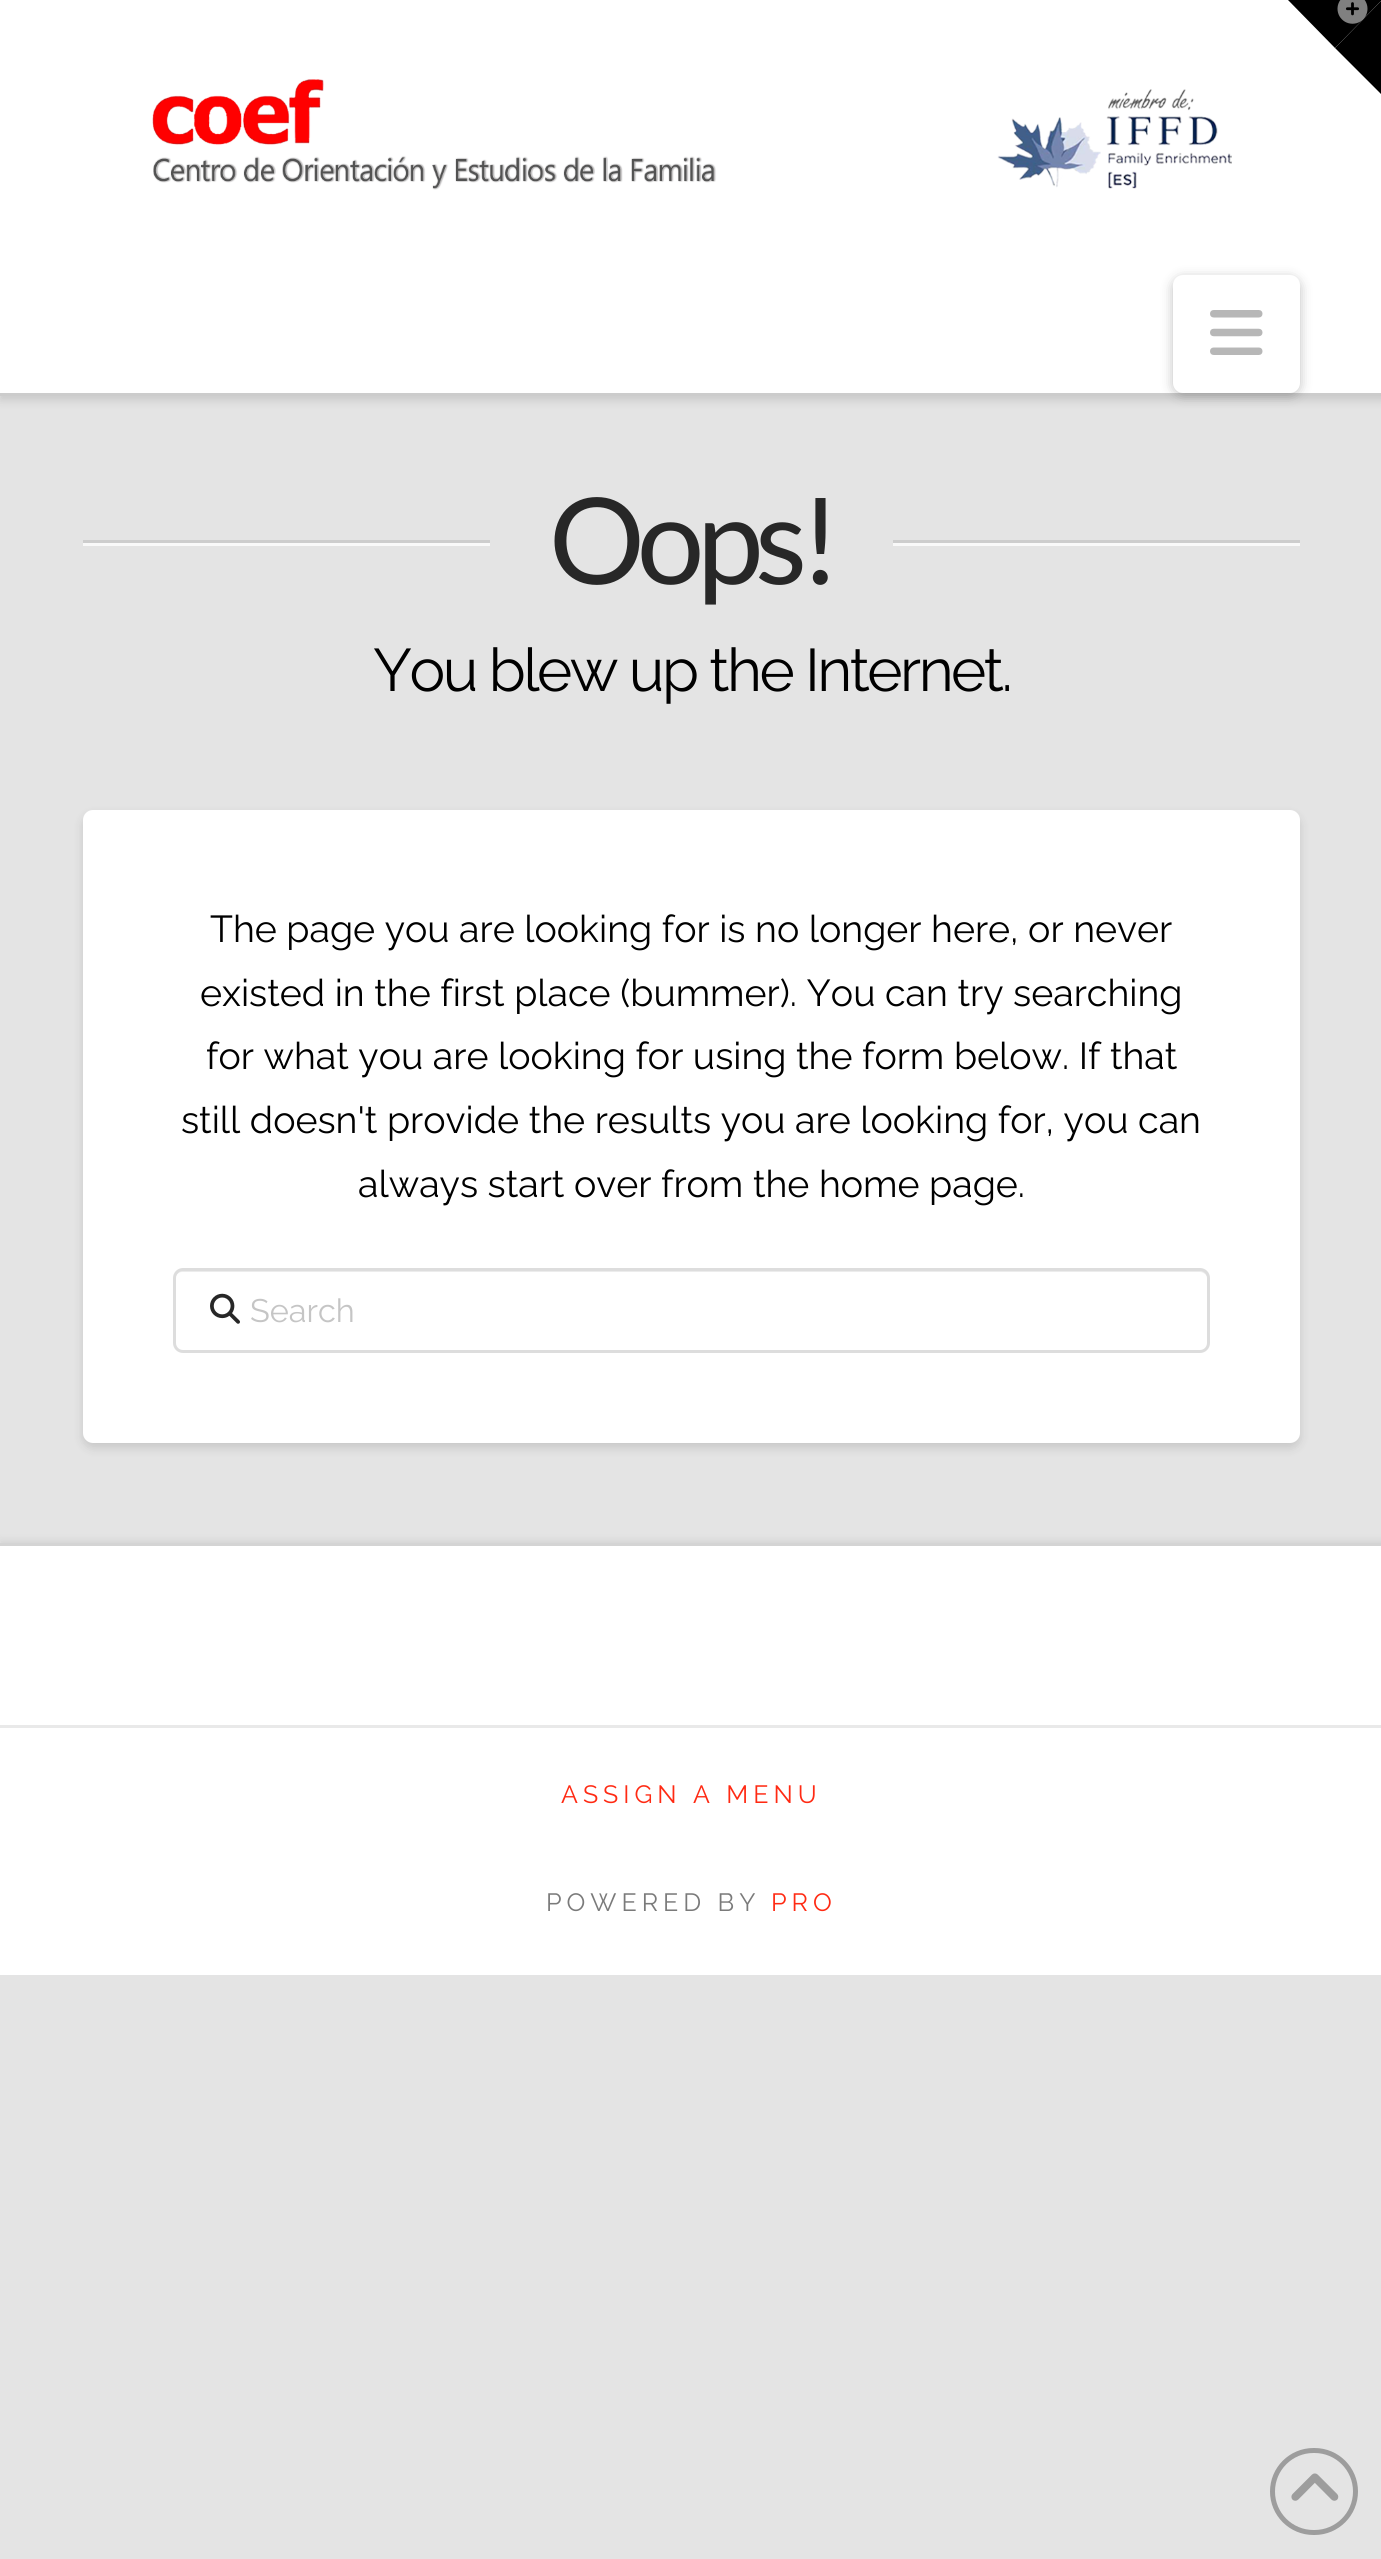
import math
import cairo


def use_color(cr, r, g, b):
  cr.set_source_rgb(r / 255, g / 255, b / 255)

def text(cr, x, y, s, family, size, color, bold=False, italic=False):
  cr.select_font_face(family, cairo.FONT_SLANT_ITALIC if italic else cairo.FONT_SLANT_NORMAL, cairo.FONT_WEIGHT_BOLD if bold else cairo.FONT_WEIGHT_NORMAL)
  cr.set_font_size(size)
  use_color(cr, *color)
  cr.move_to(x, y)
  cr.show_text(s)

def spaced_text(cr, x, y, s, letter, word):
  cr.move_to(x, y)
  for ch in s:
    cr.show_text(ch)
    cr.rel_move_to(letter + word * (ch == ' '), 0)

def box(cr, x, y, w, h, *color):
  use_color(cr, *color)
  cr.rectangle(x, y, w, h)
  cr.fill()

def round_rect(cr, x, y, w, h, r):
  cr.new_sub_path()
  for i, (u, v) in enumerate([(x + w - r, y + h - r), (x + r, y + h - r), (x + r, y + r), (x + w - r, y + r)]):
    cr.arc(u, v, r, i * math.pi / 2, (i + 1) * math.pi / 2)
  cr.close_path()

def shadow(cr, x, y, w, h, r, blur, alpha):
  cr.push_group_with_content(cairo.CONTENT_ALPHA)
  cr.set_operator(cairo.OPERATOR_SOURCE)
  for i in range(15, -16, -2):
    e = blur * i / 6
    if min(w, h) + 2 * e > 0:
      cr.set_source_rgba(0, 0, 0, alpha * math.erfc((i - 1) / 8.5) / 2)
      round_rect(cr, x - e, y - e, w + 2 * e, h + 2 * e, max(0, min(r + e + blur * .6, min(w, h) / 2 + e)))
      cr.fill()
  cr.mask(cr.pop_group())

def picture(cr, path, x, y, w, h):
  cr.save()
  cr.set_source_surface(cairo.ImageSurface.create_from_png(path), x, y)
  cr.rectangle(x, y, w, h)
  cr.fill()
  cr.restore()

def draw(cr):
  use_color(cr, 228, 228, 228)
  cr.paint()
  use_color(cr, 0, 0, 0)
  shadow(cr, 0, 5, 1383, 395, 0, 5, 0.13)
  box(cr, 0, 0, 1381, 393, 255, 255, 255)
  use_color(cr, 0, 0, 0)
  cr.new_path()
  cr.move_to(1288, 0)
  cr.line_to(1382, 0)
  cr.line_to(1335, 48)
  cr.close_path()
  cr.fill()
  cr.new_path()
  cr.move_to(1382, 0)
  cr.line_to(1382, 95)
  cr.line_to(1335, 48)
  cr.close_path()
  cr.fill()
  picture(cr, "img_01.png", 1337, 0, 31, 24)
  box(cr, 0, 393, 1381, 3, 204, 204, 204)
  picture(cr, "img_02.png", 152, 79, 1080, 111)
  use_color(cr, 0, 0, 0)
  shadow(cr, 1173, 278, 127, 117, 10, 6, 0.25)
  use_color(cr, 255, 255, 255)
  round_rect(cr, 1173, 275, 127, 118, 10)
  cr.fill()
  picture(cr, "img_03.png", 1210, 310, 53, 45)
  box(cr, 83, 543, 407, 3, 249, 249, 249)
  box(cr, 83, 540, 407, 3, 205, 205, 205)
  box(cr, 893, 543, 407, 3, 249, 249, 249)
  box(cr, 893, 540, 407, 3, 205, 205, 205)
  use_color(cr, 0, 0, 0)
  shadow(cr, 83, 815, 1217, 633, 10, 5, 0.13)
  use_color(cr, 255, 255, 255)
  round_rect(cr, 83, 810, 1217, 633, 10)
  cr.fill()
  use_color(cr, 236, 236, 236)
  cr.new_path()
  cr.move_to(182, 1272)
  cr.line_to(1200, 1272)
  cr.curve_to(1204, 1272, 1208, 1276, 1208, 1280)
  cr.line_to(1208, 1278)
  cr.curve_to(1208, 1274, 1204, 1270, 1200, 1270)
  cr.line_to(183, 1270)
  cr.curve_to(179, 1270, 175, 1274, 175, 1278)
  cr.line_to(175, 1280)
  cr.curve_to(175, 1276, 178, 1272, 182, 1272)
  cr.close_path()
  cr.fill()
  round_rect(cr, 174.5, 1269.5, 1034, 82, 8.5)
  use_color(cr, 221, 221, 221)
  cr.set_line_width(3)
  cr.stroke()
  picture(cr, "img_04.png", 210, 1293, 30, 31)
  use_color(cr, 0, 0, 0)
  shadow(cr, 0, 1540, 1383, 183, 0, 4, 0.07)
  box(cr, 0, 1546, 1381, 179, 255, 255, 255)
  box(cr, 0, 1543, 1381, 3, 212, 212, 212)
  box(cr, 0, 1728, 1381, 247, 255, 255, 255)
  box(cr, 0, 1725, 1381, 3, 233, 233, 233)
  round_rect(cr, 1272.5, 2450.5, 83, 82, 41)
  use_color(cr, 157, 157, 157)
  cr.set_line_width(5)
  cr.stroke()
  picture(cr, "img_05.png", 1291, 2473, 48, 28)
  cr.select_font_face("Lato")
  cr.set_font_size(120)
  use_color(cr, 39, 39, 39)
  spaced_text(cr, 549, 584, "Oops!", -7.5, 0)
  cr.select_font_face("Raleway")
  cr.set_font_size(60)
  use_color(cr, 0, 0, 0)
  spaced_text(cr, 373, 691, "You blew up the Internet.", -2.5, 0)
  text(cr, 210, 942, "The page you are looking for is no longer here, or never", "Raleway", 37.5, (0, 0, 0))
  text(cr, 200, 1006, "existed in the first place (bummer). You can try searching", "Raleway", 37.5, (0, 0, 0))
  text(cr, 206, 1069, "for what you are looking for using the form below. If that", "Raleway", 37.5, (0, 0, 0))
  text(cr, 181, 1133, "still doesn't provide the results you are looking for, you can", "Raleway", 37.5, (0, 0, 0))
  text(cr, 358, 1197, "always start over from the home page.", "Raleway", 37.5, (0, 0, 0))
  text(cr, 250, 1322, "Search", "Raleway", 32.5, (197, 197, 197))
  cr.set_font_size(25)
  use_color(cr, 255, 42, 19)
  spaced_text(cr, 561, 1803, "ASSIGN A MENU", 5, 0)
  use_color(cr, 122, 122, 122)
  spaced_text(cr, 546, 1911, "POWERED BY", 5, 0)
  use_color(cr, 255, 42, 19)
  spaced_text(cr, 771, 1911, "PRO", 5, 0)


surface = cairo.ImageSurface(cairo.FORMAT_RGB24, 1381, 2559)
cr = cairo.Context(surface)
options = cairo.FontOptions()
options.set_hint_metrics(cairo.HINT_METRICS_OFF)
options.set_hint_style(cairo.HINT_STYLE_NONE)
cr.set_font_options(options)
cr.set_miter_limit(4)
draw(cr)
surface.write_to_png("out.png")
